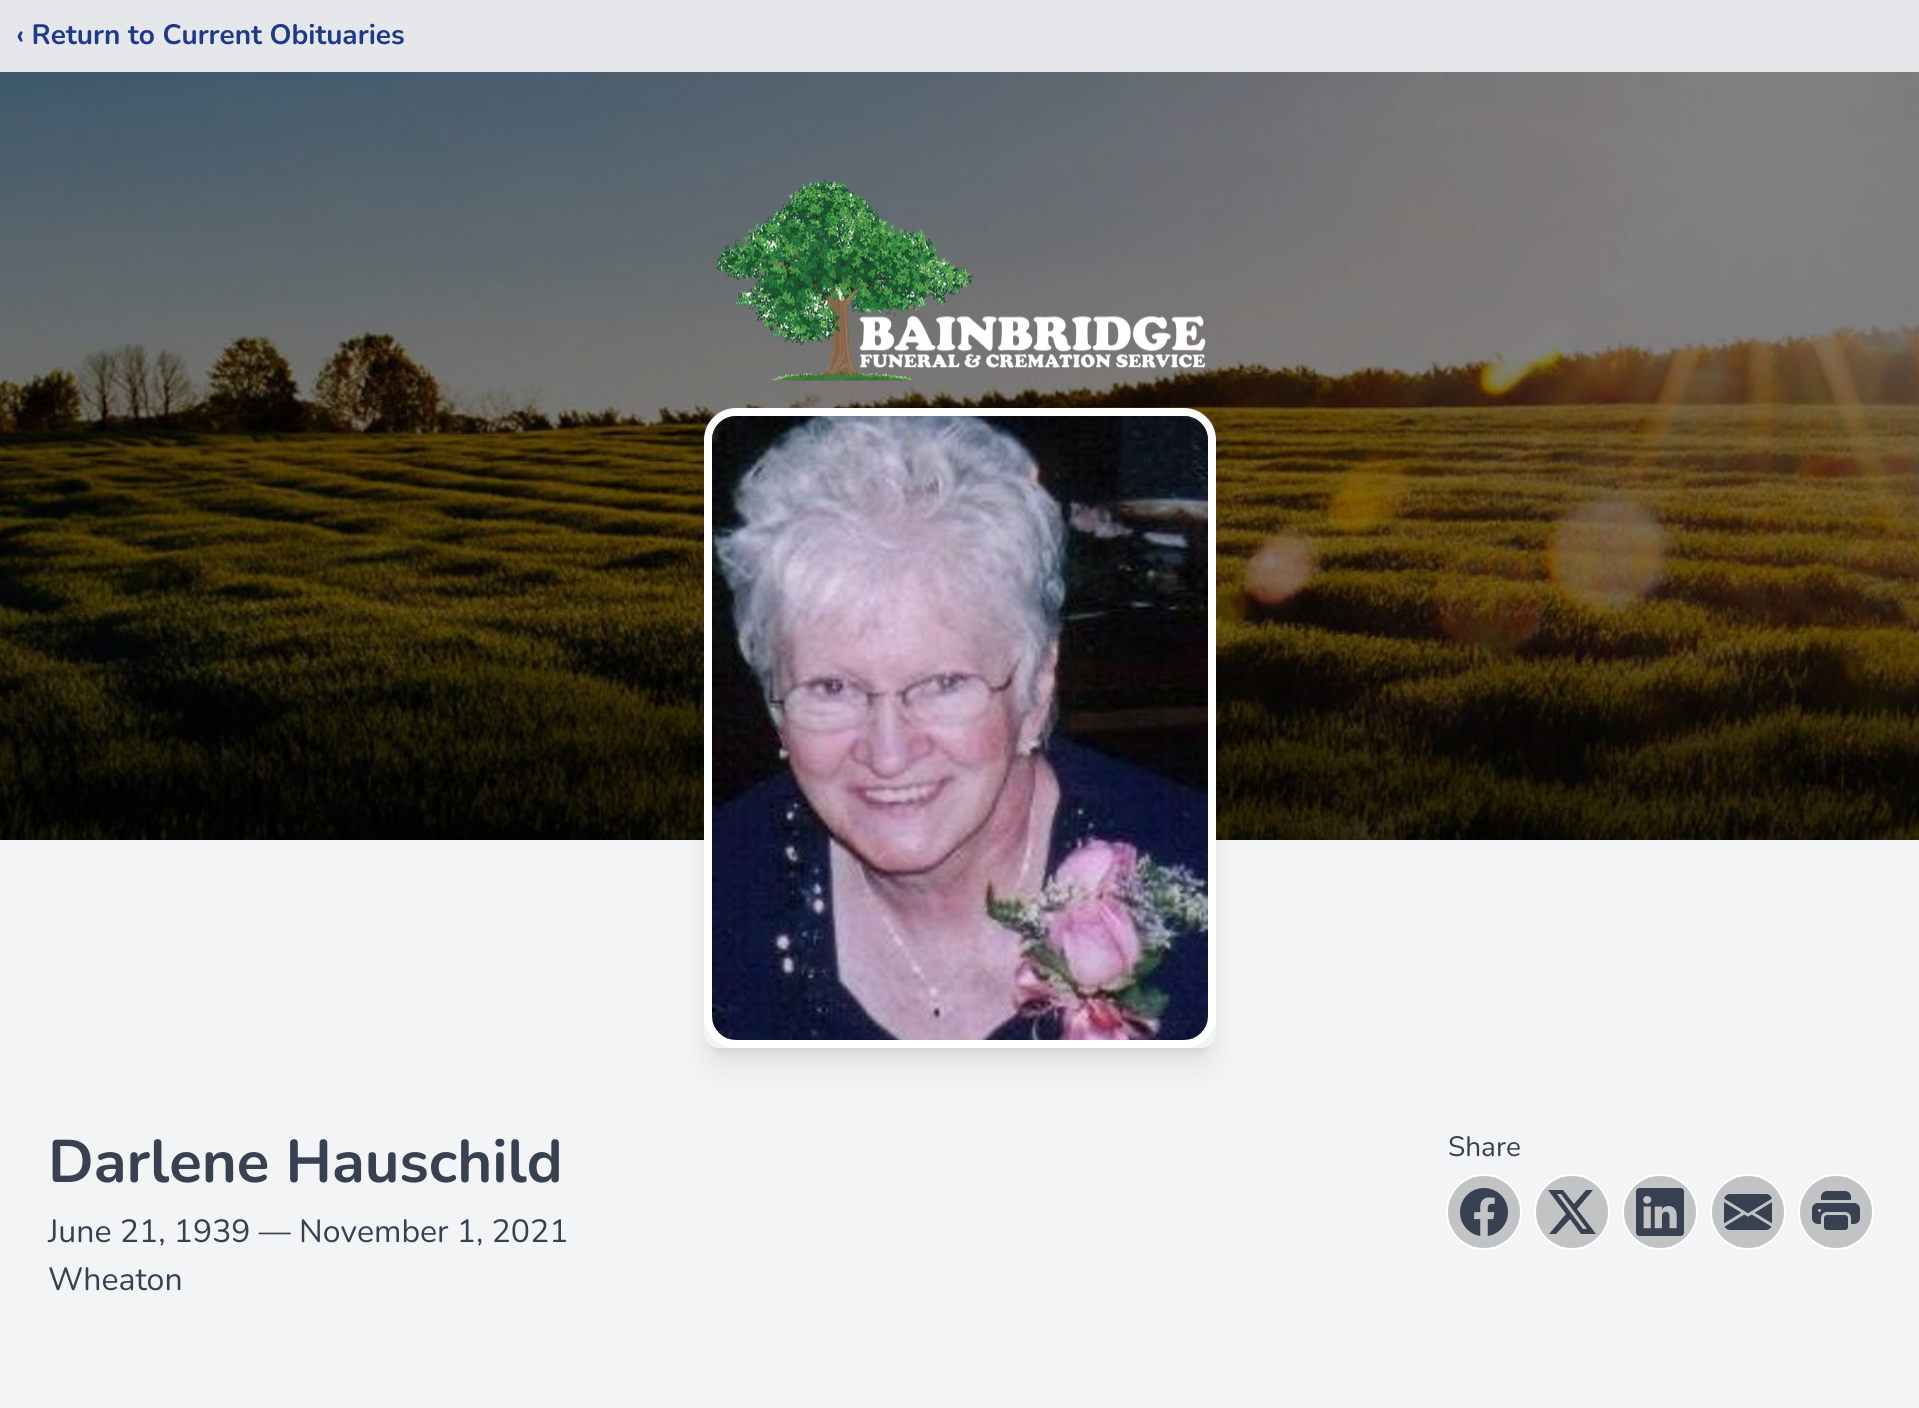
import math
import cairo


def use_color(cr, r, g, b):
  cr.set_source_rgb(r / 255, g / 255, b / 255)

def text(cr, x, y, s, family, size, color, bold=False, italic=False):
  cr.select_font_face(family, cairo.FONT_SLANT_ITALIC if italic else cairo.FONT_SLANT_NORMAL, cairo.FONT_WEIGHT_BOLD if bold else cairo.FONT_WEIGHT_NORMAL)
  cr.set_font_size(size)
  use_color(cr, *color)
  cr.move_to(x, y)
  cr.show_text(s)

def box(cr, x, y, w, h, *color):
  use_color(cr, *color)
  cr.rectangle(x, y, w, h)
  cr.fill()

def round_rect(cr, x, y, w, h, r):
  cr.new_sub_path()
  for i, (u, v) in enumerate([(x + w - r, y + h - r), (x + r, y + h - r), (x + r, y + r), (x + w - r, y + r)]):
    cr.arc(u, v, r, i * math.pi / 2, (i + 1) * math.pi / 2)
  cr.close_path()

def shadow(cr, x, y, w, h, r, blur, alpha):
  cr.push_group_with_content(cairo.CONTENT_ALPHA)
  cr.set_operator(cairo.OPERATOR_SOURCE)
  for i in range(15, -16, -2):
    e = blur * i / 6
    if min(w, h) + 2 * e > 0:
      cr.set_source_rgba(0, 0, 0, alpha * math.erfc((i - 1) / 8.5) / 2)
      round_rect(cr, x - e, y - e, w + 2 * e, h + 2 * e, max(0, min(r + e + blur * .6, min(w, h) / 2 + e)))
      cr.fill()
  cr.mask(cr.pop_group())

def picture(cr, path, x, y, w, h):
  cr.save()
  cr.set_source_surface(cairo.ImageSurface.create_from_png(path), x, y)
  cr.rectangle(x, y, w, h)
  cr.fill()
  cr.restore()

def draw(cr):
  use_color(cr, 243, 244, 246)
  cr.paint()
  box(cr, 0, 0, 1919, 72, 229, 231, 235)
  picture(cr, "img_01.png", 0, 72, 1919, 768)
  picture(cr, "img_02.png", 715, 180, 491, 201)
  cr.save()
  cr.set_fill_rule(cairo.FILL_RULE_EVEN_ODD)
  cr.new_path()
  cr.move_to(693, 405)
  cr.line_to(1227, 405)
  cr.line_to(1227, 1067)
  cr.line_to(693, 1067)
  cr.close_path()
  cr.move_to(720, 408)
  cr.line_to(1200, 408)
  cr.curve_to(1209, 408, 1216, 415, 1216, 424)
  cr.line_to(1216, 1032)
  cr.curve_to(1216, 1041, 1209, 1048, 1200, 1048)
  cr.line_to(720, 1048)
  cr.curve_to(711, 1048, 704, 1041, 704, 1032)
  cr.line_to(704, 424)
  cr.curve_to(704, 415, 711, 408, 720, 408)
  cr.close_path()
  cr.clip()
  use_color(cr, 0, 0, 0)
  shadow(cr, 712, 424, 496, 624, 8, 6, 0.1)
  cr.restore()
  cr.save()
  cr.set_fill_rule(cairo.FILL_RULE_EVEN_ODD)
  cr.new_path()
  cr.move_to(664, 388)
  cr.line_to(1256, 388)
  cr.line_to(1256, 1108)
  cr.line_to(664, 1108)
  cr.close_path()
  cr.move_to(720, 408)
  cr.line_to(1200, 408)
  cr.curve_to(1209, 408, 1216, 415, 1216, 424)
  cr.line_to(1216, 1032)
  cr.curve_to(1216, 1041, 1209, 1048, 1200, 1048)
  cr.line_to(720, 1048)
  cr.curve_to(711, 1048, 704, 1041, 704, 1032)
  cr.line_to(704, 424)
  cr.curve_to(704, 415, 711, 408, 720, 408)
  cr.close_path()
  cr.clip()
  use_color(cr, 0, 0, 0)
  shadow(cr, 710, 434, 500, 628, 10, 15, 0.1)
  cr.restore()
  round_rect(cr, 708, 412, 504, 632, 28)
  use_color(cr, 255, 255, 255)
  cr.set_line_width(8)
  cr.stroke()
  picture(cr, "img_03.png", 712, 416, 496, 624)
  cr.arc(1484, 1212, 37, 0, 2 * math.pi)
  cr.set_line_width(2)
  cr.stroke()
  cr.set_source_rgba(0, 0, 0, 0.2)
  cr.arc(1484, 1212, 36, 0, 2 * math.pi)
  cr.fill()
  picture(cr, "img_04.png", 1460, 1188, 48, 48)
  cr.arc(1572, 1212, 37, 0, 2 * math.pi)
  use_color(cr, 255, 255, 255)
  cr.stroke()
  cr.set_source_rgba(0, 0, 0, 0.2)
  cr.arc(1572, 1212, 36, 0, 2 * math.pi)
  cr.fill()
  use_color(cr, 55, 65, 81)
  cr.new_path()
  cr.move_to(1586, 1190)
  cr.line_to(1593, 1190)
  cr.line_to(1577, 1209)
  cr.line_to(1596, 1234)
  cr.line_to(1581, 1234)
  cr.line_to(1570, 1219)
  cr.line_to(1556, 1234)
  cr.line_to(1549, 1234)
  cr.line_to(1566, 1214)
  cr.line_to(1548, 1190)
  cr.line_to(1563, 1190)
  cr.line_to(1574, 1204)
  cr.close_path()
  cr.move_to(1583, 1229)
  cr.line_to(1587, 1229)
  cr.line_to(1561, 1194)
  cr.line_to(1557, 1194)
  cr.close_path()
  cr.fill()
  cr.arc(1660, 1212, 37, 0, 2 * math.pi)
  use_color(cr, 255, 255, 255)
  cr.stroke()
  cr.set_source_rgba(0, 0, 0, 0.2)
  cr.arc(1660, 1212, 36, 0, 2 * math.pi)
  cr.fill()
  picture(cr, "img_05.png", 1636, 1188, 48, 48)
  cr.arc(1748, 1212, 37, 0, 2 * math.pi)
  use_color(cr, 255, 255, 255)
  cr.stroke()
  cr.set_source_rgba(0, 0, 0, 0.2)
  cr.arc(1748, 1212, 36, 0, 2 * math.pi)
  cr.fill()
  picture(cr, "img_06.png", 1724, 1194, 48, 36)
  cr.arc(1836, 1212, 37, 0, 2 * math.pi)
  use_color(cr, 255, 255, 255)
  cr.stroke()
  cr.set_source_rgba(0, 0, 0, 0.2)
  cr.arc(1836, 1212, 36, 0, 2 * math.pi)
  cr.fill()
  picture(cr, "img_07.png", 1812, 1191, 48, 39)
  text(cr, 16, 44, "‹ Return to Current Obituaries", "Nunito", 28, (30, 58, 138), bold=True)
  text(cr, 48, 1182, "Darlene Hauschild", "Nunito", 60, (55, 65, 81), bold=True)
  text(cr, 48, 1242, "June 21, 1939 — November 1, 2021", "Nunito", 32, (55, 65, 81))
  text(cr, 48, 1290, "Wheaton", "Nunito", 32, (55, 65, 81))
  text(cr, 1448, 1156, "Share", "Nunito", 28, (55, 65, 81))


surface = cairo.ImageSurface(cairo.FORMAT_RGB24, 1919, 1408)
cr = cairo.Context(surface)
options = cairo.FontOptions()
options.set_hint_metrics(cairo.HINT_METRICS_OFF)
options.set_hint_style(cairo.HINT_STYLE_NONE)
cr.set_font_options(options)
cr.set_miter_limit(4)
draw(cr)
surface.write_to_png("out.png")
